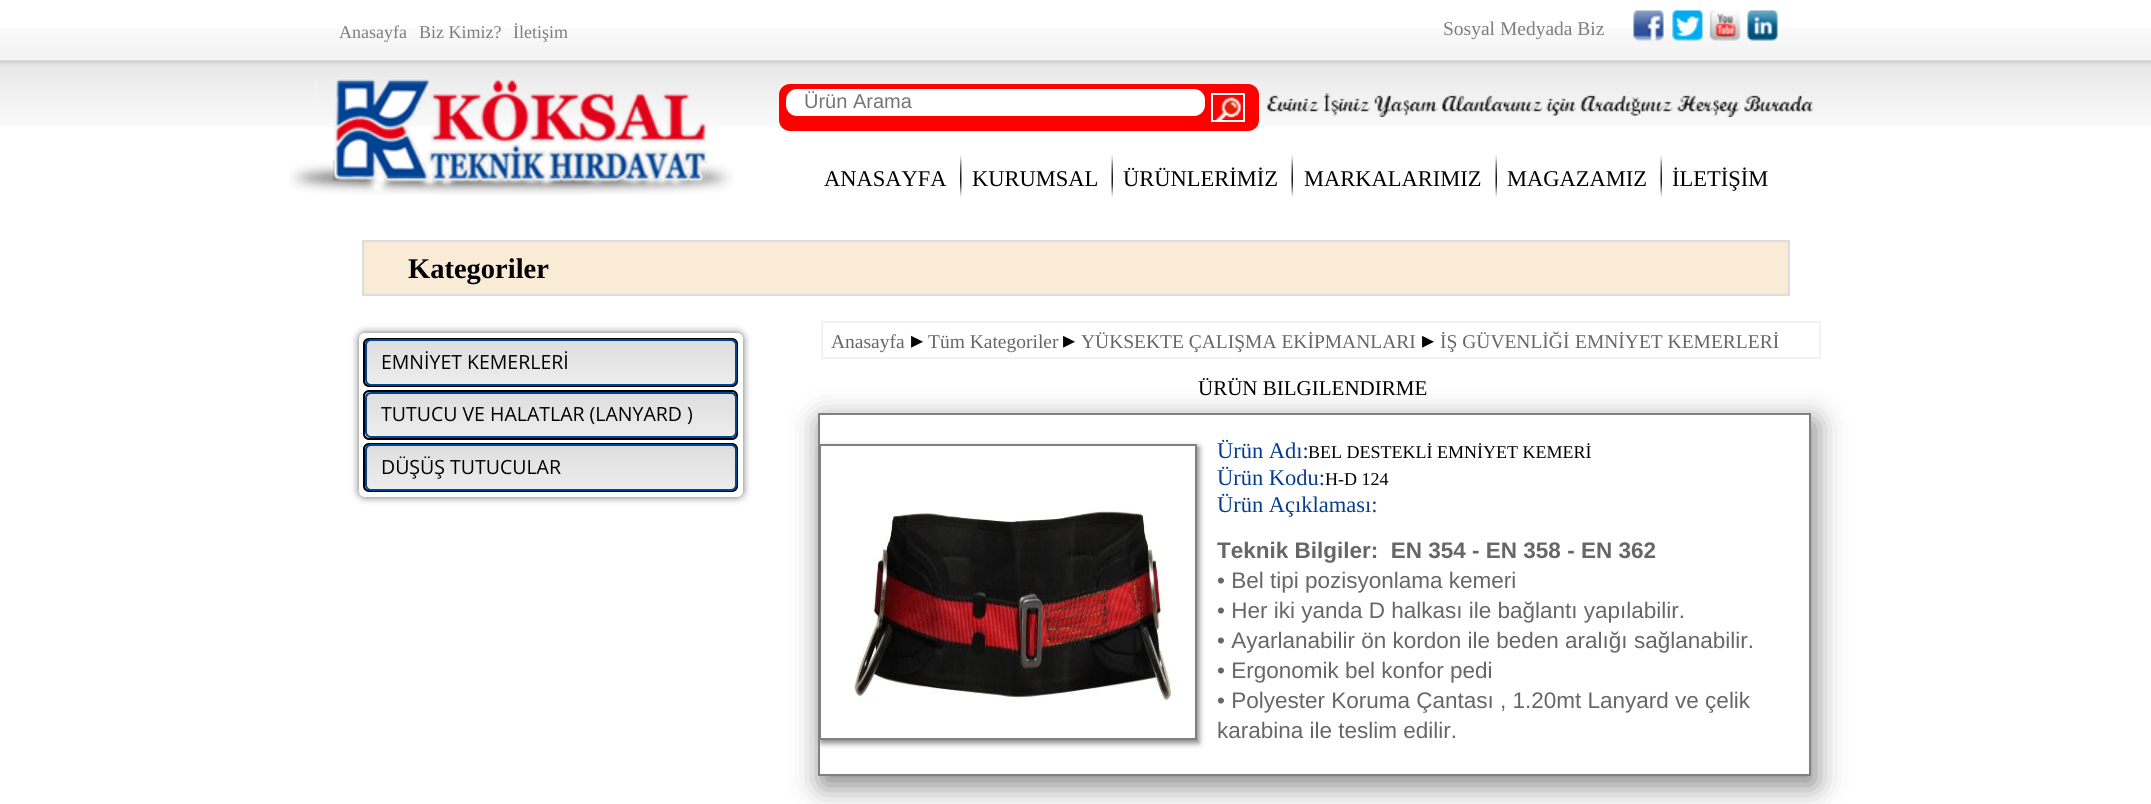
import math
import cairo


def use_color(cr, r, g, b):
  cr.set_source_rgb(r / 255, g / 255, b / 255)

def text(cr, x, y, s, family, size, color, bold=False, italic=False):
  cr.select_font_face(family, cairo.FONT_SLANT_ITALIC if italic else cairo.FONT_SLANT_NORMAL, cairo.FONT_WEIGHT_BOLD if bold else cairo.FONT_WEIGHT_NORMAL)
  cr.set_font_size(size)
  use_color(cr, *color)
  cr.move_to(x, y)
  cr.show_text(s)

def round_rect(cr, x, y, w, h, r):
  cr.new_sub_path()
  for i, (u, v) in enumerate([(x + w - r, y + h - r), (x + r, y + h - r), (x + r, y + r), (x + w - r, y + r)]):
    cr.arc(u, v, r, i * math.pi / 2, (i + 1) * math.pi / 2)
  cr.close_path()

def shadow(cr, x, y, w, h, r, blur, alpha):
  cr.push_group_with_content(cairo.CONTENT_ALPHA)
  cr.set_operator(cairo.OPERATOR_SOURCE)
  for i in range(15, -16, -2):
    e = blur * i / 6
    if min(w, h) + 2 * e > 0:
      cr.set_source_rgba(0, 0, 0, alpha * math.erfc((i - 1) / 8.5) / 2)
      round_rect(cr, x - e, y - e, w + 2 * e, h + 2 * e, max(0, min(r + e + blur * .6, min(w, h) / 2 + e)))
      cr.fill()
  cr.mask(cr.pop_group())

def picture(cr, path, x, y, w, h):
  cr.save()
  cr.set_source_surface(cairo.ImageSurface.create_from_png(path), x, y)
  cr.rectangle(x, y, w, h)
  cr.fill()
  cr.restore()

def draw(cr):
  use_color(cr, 255, 255, 255)
  cr.paint()
  picture(cr, "img_01.png", 0, 28, 2151, 99)
  picture(cr, "img_02.png", 1633, 10, 31, 31)
  picture(cr, "img_03.png", 1672, 10, 31, 31)
  picture(cr, "img_04.png", 1709, 10, 32, 31)
  picture(cr, "img_05.png", 1747, 10, 31, 31)
  picture(cr, "img_06.png", 289, 78, 444, 117)
  use_color(cr, 255, 0, 0)
  round_rect(cr, 779, 84, 480, 47, 11)
  cr.fill()
  use_color(cr, 255, 255, 255)
  round_rect(cr, 786, 89, 419, 27, 11)
  cr.fill()
  picture(cr, "img_07.png", 1216, 97, 26, 23)
  cr.rectangle(1212, 94, 32, 27)
  cr.stroke()
  picture(cr, "img_08.png", 1266, 93, 548, 24)
  picture(cr, "img_09.png", 960, 154, 2, 44)
  picture(cr, "img_10.png", 1111, 154, 2, 44)
  picture(cr, "img_10.png", 1291, 154, 2, 44)
  picture(cr, "img_10.png", 1495, 154, 2, 44)
  picture(cr, "img_10.png", 1660, 154, 2, 44)
  use_color(cr, 250, 235, 215)
  cr.rectangle(363, 241, 1426, 54)
  cr.fill_preserve()
  use_color(cr, 221, 221, 221)
  cr.stroke()
  cr.rectangle(822, 322, 998, 36)
  use_color(cr, 242, 242, 242)
  cr.stroke()
  use_color(cr, 0, 0, 0)
  shadow(cr, 359, 333, 384, 164, 6, 4, 0.6)
  use_color(cr, 255, 255, 255)
  round_rect(cr, 359, 333, 384, 164, 6)
  cr.fill()
  cr.save()
  round_rect(cr, 363, 338, 375, 49, 6)
  cr.clip()
  gradient = cairo.LinearGradient(551, 339, 551, 386)
  gradient.add_color_stop_rgba(0, 0.867, 0.867, 0.867, 1)
  gradient.add_color_stop_rgba(1, 0.933, 0.933, 0.933, 1)
  cr.set_source(gradient)
  cr.rectangle(363, 339, 375, 47)
  cr.fill()
  cr.restore()
  round_rect(cr, 364, 339, 373, 47, 5)
  use_color(cr, 0, 0, 0)
  cr.stroke()
  round_rect(cr, 366, 340, 370, 45, 5)
  use_color(cr, 0, 68, 148)
  cr.stroke()
  cr.save()
  round_rect(cr, 363, 390, 375, 50, 6)
  cr.clip()
  gradient = cairo.LinearGradient(551, 392, 551, 438)
  gradient.add_color_stop_rgba(0, 0.867, 0.867, 0.867, 1)
  gradient.add_color_stop_rgba(1, 0.933, 0.933, 0.933, 1)
  cr.set_source(gradient)
  cr.rectangle(363, 392, 375, 46)
  cr.fill()
  cr.restore()
  round_rect(cr, 364, 391, 373, 48, 5)
  use_color(cr, 0, 0, 0)
  cr.stroke()
  round_rect(cr, 366, 393, 370, 44, 5)
  use_color(cr, 0, 68, 148)
  cr.stroke()
  cr.save()
  round_rect(cr, 363, 443, 375, 49, 6)
  cr.clip()
  gradient = cairo.LinearGradient(551, 444, 551, 491)
  gradient.add_color_stop_rgba(0, 0.867, 0.867, 0.867, 1)
  gradient.add_color_stop_rgba(1, 0.933, 0.933, 0.933, 1)
  cr.set_source(gradient)
  cr.rectangle(363, 444, 375, 47)
  cr.fill()
  cr.restore()
  round_rect(cr, 364, 444, 373, 47, 5)
  use_color(cr, 0, 0, 0)
  cr.stroke()
  round_rect(cr, 366, 445, 370, 45, 5)
  use_color(cr, 0, 68, 148)
  cr.stroke()
  cr.save()
  cr.set_fill_rule(cairo.FILL_RULE_EVEN_ODD)
  cr.new_path()
  cr.move_to(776, 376)
  cr.line_to(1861, 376)
  cr.line_to(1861, 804)
  cr.line_to(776, 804)
  cr.close_path()
  cr.move_to(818, 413)
  cr.line_to(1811, 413)
  cr.line_to(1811, 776)
  cr.line_to(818, 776)
  cr.close_path()
  cr.clip()
  use_color(cr, 128, 128, 128)
  shadow(cr, 822, 422, 993, 363, 0, 15, 1)
  cr.restore()
  cr.rectangle(819, 414, 991, 361)
  use_color(cr, 128, 128, 128)
  cr.stroke()
  cr.save()
  cr.set_fill_rule(cairo.FILL_RULE_EVEN_ODD)
  cr.new_path()
  cr.move_to(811, 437)
  cr.line_to(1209, 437)
  cr.line_to(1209, 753)
  cr.line_to(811, 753)
  cr.close_path()
  cr.move_to(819, 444)
  cr.line_to(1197, 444)
  cr.line_to(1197, 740)
  cr.line_to(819, 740)
  cr.close_path()
  cr.clip()
  use_color(cr, 128, 128, 128)
  shadow(cr, 821, 447, 378, 296, 0, 3, 1)
  cr.restore()
  cr.rectangle(820, 445, 376, 294)
  cr.stroke()
  picture(cr, "img_11.png", 854, 507, 319, 195)
  text(cr, 339, 38, "Anasayfa", "Liberation Serif", 18, (125, 125, 127))
  text(cr, 419, 38, "Biz Kimiz?", "Liberation Serif", 18, (125, 125, 127))
  text(cr, 513, 38, "İletişim", "Liberation Serif", 18, (125, 125, 127))
  text(cr, 1443, 35, "Sosyal Medyada Biz", "Liberation Serif", 19.5, (125, 125, 127))
  text(cr, 804, 108, "Ürün Arama", "Liberation Sans", 20, (117, 117, 117))
  text(cr, 824, 186, "ANASAYFA", "Liberation Serif", 22.5, (0, 0, 0))
  text(cr, 972, 186, "KURUMSAL", "Liberation Serif", 22.5, (0, 0, 0))
  text(cr, 1123, 186, "ÜRÜNLERİMİZ", "Liberation Serif", 22.5, (0, 0, 0))
  text(cr, 1304, 186, "MARKALARIMIZ", "Liberation Serif", 22.5, (0, 0, 0))
  text(cr, 1507, 186, "MAGAZAMIZ", "Liberation Serif", 22.5, (0, 0, 0))
  text(cr, 1672, 186, "İLETİŞİM", "Liberation Serif", 22.5, (0, 0, 0))
  text(cr, 408, 278, "Kategoriler", "Liberation Serif", 28.5, (0, 0, 0), bold=True)
  text(cr, 831, 348, "Anasayfa", "Liberation Serif", 19.5, (102, 102, 102))
  text(cr, 911, 348, "▸", "DejaVu Sans", 24, (0, 0, 0))
  text(cr, 928, 348, "Tüm Kategoriler", "Liberation Serif", 19.5, (102, 102, 102))
  text(cr, 1063, 348, "▸", "DejaVu Sans", 24, (0, 0, 0))
  text(cr, 1081, 348, "YÜKSEKTE ÇALIŞMA EKİPMANLARI", "Liberation Serif", 19.5, (102, 102, 102))
  text(cr, 1422, 348, "▸", "DejaVu Sans", 24, (0, 0, 0))
  text(cr, 1440, 348, "İŞ GÜVENLİĞİ", "Liberation Serif", 19.5, (102, 102, 102))
  text(cr, 1575, 348, "EMNİYET KEMERLERİ", "Liberation Serif", 19.5, (102, 102, 102))
  text(cr, 381, 369, "EMNİYET KEMERLERİ", "Open Sans", 19.5, (0, 0, 0))
  text(cr, 381, 421, "TUTUCU VE HALATLAR (LANYARD )", "Open Sans", 19.5, (0, 0, 0))
  text(cr, 381, 474, "DÜŞÜŞ TUTUCULAR", "Open Sans", 19.5, (0, 0, 0))
  text(cr, 1198, 395, "ÜRÜN BILGILENDIRME", "Liberation Serif", 21, (0, 0, 0))
  text(cr, 1217, 458, "Ürün Adı:", "Liberation Serif", 22.5, (5, 60, 144))
  text(cr, 1308, 458, "BEL DESTEKLİ EMNİYET KEMERİ", "Liberation Serif", 18, (0, 0, 0))
  text(cr, 1217, 485, "Ürün Kodu:", "Liberation Serif", 22.5, (5, 60, 144))
  text(cr, 1325, 485, "H-D 124", "Liberation Serif", 18, (0, 0, 0))
  text(cr, 1217, 512, "Ürün Açıklaması:", "Liberation Serif", 22.5, (5, 60, 144))
  text(cr, 1217, 558, "Teknik Bilgiler:  EN 354 - EN 358 - EN 362", "Liberation Sans", 22.5, (102, 102, 102), bold=True)
  text(cr, 1217, 588, "• Bel tipi pozisyonlama kemeri", "Liberation Sans", 22.5, (102, 102, 102))
  text(cr, 1217, 618, "• Her iki yanda D halkası ile bağlantı yapılabilir.", "Liberation Sans", 22.5, (102, 102, 102))
  text(cr, 1217, 648, "• Ayarlanabilir ön kordon ile beden aralığı sağlanabilir.", "Liberation Sans", 22.5, (102, 102, 102))
  text(cr, 1217, 678, "• Ergonomik bel konfor pedi", "Liberation Sans", 22.5, (102, 102, 102))
  text(cr, 1217, 708, "• Polyester Koruma Çantası , 1.20mt Lanyard ve çelik", "Liberation Sans", 22.5, (102, 102, 102))
  text(cr, 1217, 738, "karabina ile teslim edilir.", "Liberation Sans", 22.5, (102, 102, 102))


surface = cairo.ImageSurface(cairo.FORMAT_RGB24, 2151, 804)
cr = cairo.Context(surface)
options = cairo.FontOptions()
options.set_hint_metrics(cairo.HINT_METRICS_OFF)
options.set_hint_style(cairo.HINT_STYLE_NONE)
cr.set_font_options(options)
cr.set_miter_limit(4)
draw(cr)
surface.write_to_png("out.png")
